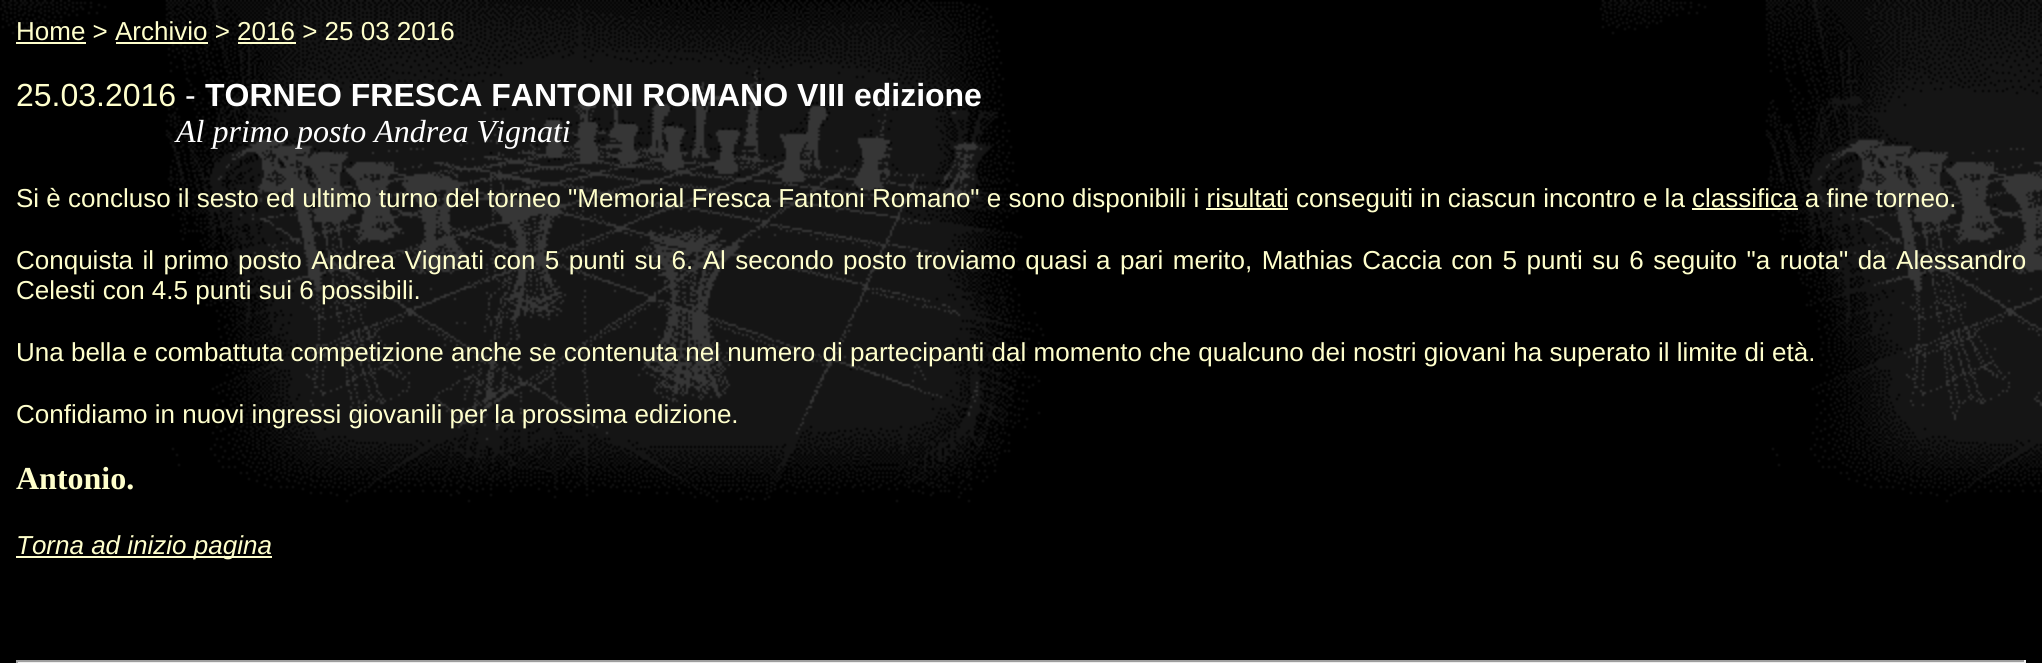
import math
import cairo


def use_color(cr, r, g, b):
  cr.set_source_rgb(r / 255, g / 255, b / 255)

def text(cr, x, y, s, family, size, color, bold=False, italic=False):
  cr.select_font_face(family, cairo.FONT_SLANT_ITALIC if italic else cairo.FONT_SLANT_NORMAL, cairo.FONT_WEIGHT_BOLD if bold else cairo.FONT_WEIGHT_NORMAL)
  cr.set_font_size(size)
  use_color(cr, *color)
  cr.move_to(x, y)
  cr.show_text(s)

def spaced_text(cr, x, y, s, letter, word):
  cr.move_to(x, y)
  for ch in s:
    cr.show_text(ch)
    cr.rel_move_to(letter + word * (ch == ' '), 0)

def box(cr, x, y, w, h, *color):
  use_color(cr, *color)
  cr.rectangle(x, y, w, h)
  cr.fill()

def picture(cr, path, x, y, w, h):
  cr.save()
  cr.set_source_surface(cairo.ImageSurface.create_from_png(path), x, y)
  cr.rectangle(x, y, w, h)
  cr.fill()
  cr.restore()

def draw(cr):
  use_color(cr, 255, 255, 255)
  cr.paint()
  picture(cr, "img_01.png", 0, 0, 2042, 663)
  box(cr, 16, 42, 70, 2, 255, 255, 204)
  box(cr, 116, 42, 92, 2, 255, 255, 204)
  box(cr, 238, 42, 58, 2, 255, 255, 204)
  box(cr, 1206, 208, 82, 2, 255, 255, 204)
  box(cr, 1692, 208, 106, 2, 255, 255, 204)
  box(cr, 16, 556, 256, 2, 255, 255, 204)
  box(cr, 16, 660, 2010, 2, 159, 159, 159)
  box(cr, 2024, 660, 2, 3, 238, 238, 238)
  box(cr, 16, 662, 2010, 1, 238, 238, 238)
  box(cr, 16, 660, 2, 3, 159, 159, 159)
  text(cr, 16, 40, "Home > Archivio > 2016 > 25 03 2016", "Liberation Sans", 26, (255, 255, 204))
  text(cr, 16, 106, "25.03.2016", "Liberation Sans", 32, (255, 255, 204))
  text(cr, 185, 106, "-", "Liberation Sans", 32, (255, 255, 255))
  text(cr, 205, 106, "TORNEO FRESCA FANTONI ROMANO VIII edizione", "Liberation Sans", 32, (255, 255, 255), bold=True)
  text(cr, 176, 142, "Al primo posto Andrea Vignati", "Liberation Serif", 32, (255, 255, 255), italic=True)
  text(cr, 16, 207, "Si è concluso il sesto ed ultimo turno del torneo \"Memorial Fresca Fantoni Romano\" e sono disponibili i risultati conseguiti in ciascun incontro e la classifica a fine torneo.", "Liberation Sans", 26, (255, 255, 204))
  spaced_text(cr, 16, 269, "Conquista il primo posto Andrea Vignati con 5 punti su 6. Al secondo posto troviamo quasi", 0, 2.25)
  spaced_text(cr, 1096, 269, "a pari merito, Mathias Caccia con 5 punti su 6 seguito \"a ruota\" da Alessandro", 0, 2.25)
  text(cr, 16, 299, "Celesti con 4.5 punti sui 6 possibili.", "Liberation Sans", 26, (255, 255, 204))
  text(cr, 16, 361, "Una bella e combattuta competizione anche se contenuta nel numero di partecipanti dal momento che qualcuno dei nostri giovani ha superato il limite di età.", "Liberation Sans", 26, (255, 255, 204))
  text(cr, 16, 423, "Confidiamo in nuovi ingressi giovanili per la prossima edizione.", "Liberation Sans", 26, (255, 255, 204))
  text(cr, 16, 489, "Antonio.", "Liberation Serif", 32, (255, 255, 204), bold=True)
  text(cr, 16, 554, "Torna ad inizio pagina", "Liberation Sans", 26, (255, 255, 204), italic=True)


surface = cairo.ImageSurface(cairo.FORMAT_RGB24, 2042, 663)
cr = cairo.Context(surface)
options = cairo.FontOptions()
options.set_hint_metrics(cairo.HINT_METRICS_OFF)
options.set_hint_style(cairo.HINT_STYLE_NONE)
cr.set_font_options(options)
cr.set_miter_limit(4)
draw(cr)
surface.write_to_png("out.png")
